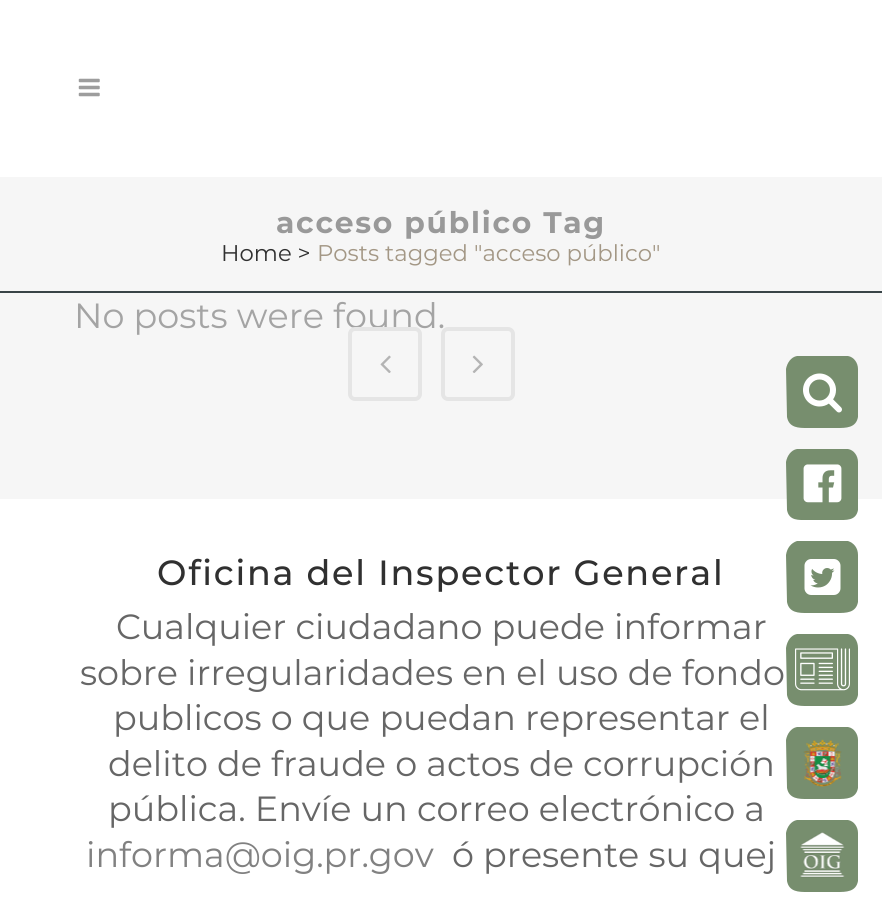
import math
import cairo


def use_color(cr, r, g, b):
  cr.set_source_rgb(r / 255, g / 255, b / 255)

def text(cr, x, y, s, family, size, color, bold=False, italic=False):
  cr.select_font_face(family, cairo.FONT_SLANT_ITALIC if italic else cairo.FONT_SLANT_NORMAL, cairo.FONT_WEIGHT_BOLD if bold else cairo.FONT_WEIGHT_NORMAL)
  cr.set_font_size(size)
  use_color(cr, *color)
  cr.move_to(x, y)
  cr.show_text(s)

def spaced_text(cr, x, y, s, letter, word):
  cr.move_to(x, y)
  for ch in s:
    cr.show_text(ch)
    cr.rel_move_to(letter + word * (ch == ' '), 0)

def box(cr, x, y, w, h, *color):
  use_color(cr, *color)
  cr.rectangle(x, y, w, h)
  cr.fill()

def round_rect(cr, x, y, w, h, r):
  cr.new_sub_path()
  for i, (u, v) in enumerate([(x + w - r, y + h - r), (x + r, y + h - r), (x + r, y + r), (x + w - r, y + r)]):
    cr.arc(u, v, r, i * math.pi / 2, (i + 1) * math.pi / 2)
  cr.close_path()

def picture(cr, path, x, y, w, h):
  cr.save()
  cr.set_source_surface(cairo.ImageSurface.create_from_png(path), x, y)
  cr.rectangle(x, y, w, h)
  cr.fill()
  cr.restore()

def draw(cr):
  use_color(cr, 246, 246, 246)
  cr.paint()
  box(cr, 0, 0, 882, 177, 255, 255, 255)
  picture(cr, "img_01.png", 78, 78, 22, 19)
  box(cr, 0, 291, 882, 2, 57, 68, 71)
  box(cr, 0, 499, 882, 404, 255, 255, 255)
  use_color(cr, 119, 142, 110)
  cr.new_path()
  cr.move_to(858, 369)
  cr.line_to(858, 417)
  cr.curve_to(856, 428, 846, 428, 837, 428)
  cr.line_to(807, 428)
  cr.curve_to(799, 428, 789, 428, 787, 417)
  cr.line_to(786, 369)
  cr.curve_to(787, 363, 791, 357, 797, 356)
  cr.line_to(848, 356)
  cr.curve_to(854, 357, 858, 363, 858, 369)
  cr.close_path()
  cr.fill()
  picture(cr, "img_04.png", 803, 373, 39, 40)
  cr.new_path()
  cr.move_to(858, 462)
  cr.line_to(858, 510)
  cr.curve_to(856, 521, 846, 520, 837, 520)
  cr.line_to(807, 520)
  cr.curve_to(799, 520, 789, 521, 787, 510)
  cr.line_to(786, 462)
  cr.curve_to(787, 456, 791, 450, 797, 449)
  cr.line_to(848, 449)
  cr.curve_to(854, 450, 858, 456, 858, 462)
  cr.close_path()
  cr.fill()
  picture(cr, "img_05.png", 803, 464, 39, 39)
  cr.new_path()
  cr.move_to(858, 555)
  cr.line_to(858, 602)
  cr.curve_to(856, 613, 846, 613, 837, 613)
  cr.line_to(807, 613)
  cr.curve_to(799, 613, 789, 613, 787, 602)
  cr.line_to(786, 555)
  cr.curve_to(787, 548, 791, 543, 797, 541)
  cr.line_to(848, 541)
  cr.curve_to(854, 543, 858, 548, 858, 555)
  cr.close_path()
  cr.fill()
  picture(cr, "img_06.png", 804, 559, 37, 36)
  cr.new_path()
  cr.move_to(858, 648)
  cr.line_to(858, 695)
  cr.curve_to(856, 706, 846, 706, 837, 706)
  cr.line_to(807, 706)
  cr.curve_to(799, 706, 789, 706, 787, 695)
  cr.line_to(786, 648)
  cr.curve_to(787, 641, 791, 635, 797, 634)
  cr.line_to(848, 634)
  cr.curve_to(854, 635, 858, 641, 858, 648)
  cr.close_path()
  cr.fill()
  picture(cr, "img_07.png", 795, 648, 55, 43)
  cr.new_path()
  cr.move_to(858, 740)
  cr.line_to(858, 788)
  cr.curve_to(856, 799, 846, 799, 837, 799)
  cr.line_to(807, 799)
  cr.curve_to(799, 799, 789, 799, 787, 788)
  cr.line_to(786, 740)
  cr.curve_to(787, 734, 791, 728, 797, 727)
  cr.line_to(848, 727)
  cr.curve_to(854, 728, 858, 734, 858, 740)
  cr.close_path()
  cr.fill()
  picture(cr, "img_08.png", 803, 739, 39, 48)
  cr.new_path()
  cr.move_to(858, 833)
  cr.line_to(858, 881)
  cr.curve_to(856, 892, 846, 892, 837, 892)
  cr.line_to(807, 892)
  cr.curve_to(799, 892, 789, 892, 787, 881)
  cr.line_to(786, 833)
  cr.curve_to(787, 827, 791, 821, 797, 820)
  cr.line_to(848, 820)
  cr.curve_to(854, 821, 858, 827, 858, 833)
  cr.close_path()
  cr.fill()
  picture(cr, "img_09.png", 800, 832, 45, 46)
  cr.select_font_face("Montserrat", cairo.FONT_SLANT_NORMAL, cairo.FONT_WEIGHT_BOLD)
  cr.set_font_size(29.75)
  use_color(cr, 153, 153, 153)
  spaced_text(cr, 276, 233, "acceso público Tag", 1.75, 0)
  text(cr, 221, 261, "Home >", "Montserrat", 22.75, (48, 48, 48))
  text(cr, 317, 261, "Posts tagged \"acceso público\"", "Montserrat", 22.75, (163, 151, 133))
  text(cr, 74, 328, "No posts were found.", "Montserrat", 35, (164, 164, 164))
  round_rect(cr, 350, 329, 70, 70, 5)
  use_color(cr, 229, 229, 229)
  cr.set_line_width(4)
  cr.stroke()
  picture(cr, "img_02.png", 380, 355, 11, 18)
  round_rect(cr, 443, 329, 70, 70, 5)
  cr.stroke()
  picture(cr, "img_03.png", 472, 355, 11, 18)
  cr.select_font_face("Montserrat Medium")
  use_color(cr, 48, 48, 48)
  spaced_text(cr, 157, 585, "Oficina del Inspector General", 1.75, 0)
  text(cr, 116, 639, "Cualquier ciudadano puede informar", "Montserrat", 35, (102, 102, 102))
  text(cr, 80, 685, "sobre irregularidades en el uso de fondo", "Montserrat", 35, (102, 102, 102))
  text(cr, 113, 730, "publicos o que puedan representar el", "Montserrat", 35, (102, 102, 102))
  text(cr, 108, 776, "delito de fraude o actos de corrupción", "Montserrat", 35, (102, 102, 102))
  text(cr, 108, 821, "pública. Envíe un correo electrónico a", "Montserrat", 35, (102, 102, 102))
  text(cr, 86, 867, "informa@oig.pr.gov", "Montserrat", 35, (129, 129, 129))
  text(cr, 452, 867, "ó presente su quej", "Montserrat", 35, (102, 102, 102))


surface = cairo.ImageSurface(cairo.FORMAT_RGB24, 882, 903)
cr = cairo.Context(surface)
options = cairo.FontOptions()
options.set_hint_metrics(cairo.HINT_METRICS_OFF)
options.set_hint_style(cairo.HINT_STYLE_NONE)
cr.set_font_options(options)
cr.set_miter_limit(4)
draw(cr)
surface.write_to_png("out.png")
